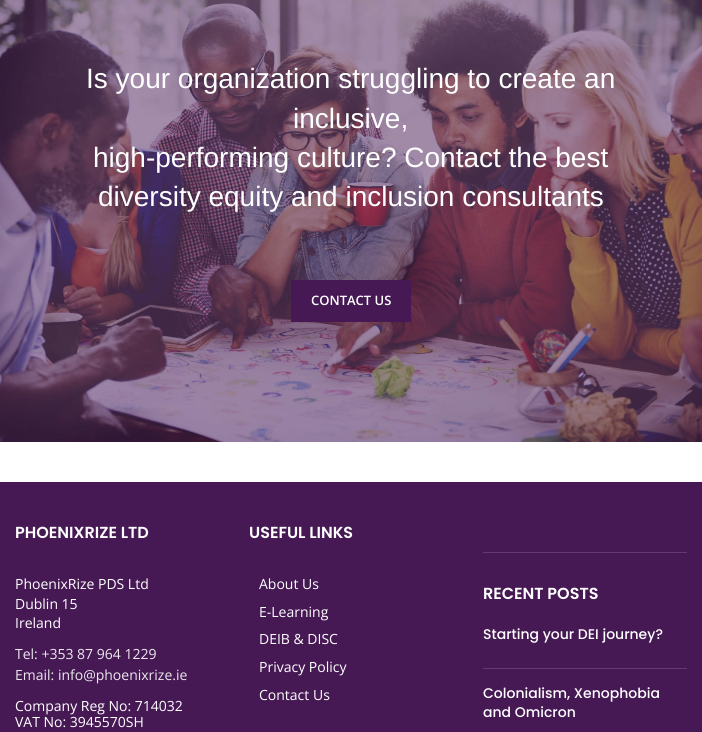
import math
import cairo


def use_color(cr, r, g, b):
  cr.set_source_rgb(r / 255, g / 255, b / 255)

def text(cr, x, y, s, family, size, color, bold=False, italic=False):
  cr.select_font_face(family, cairo.FONT_SLANT_ITALIC if italic else cairo.FONT_SLANT_NORMAL, cairo.FONT_WEIGHT_BOLD if bold else cairo.FONT_WEIGHT_NORMAL)
  cr.set_font_size(size)
  use_color(cr, *color)
  cr.move_to(x, y)
  cr.show_text(s)

def box(cr, x, y, w, h, *color):
  use_color(cr, *color)
  cr.rectangle(x, y, w, h)
  cr.fill()

def picture(cr, path, x, y, w, h):
  cr.save()
  cr.set_source_surface(cairo.ImageSurface.create_from_png(path), x, y)
  cr.rectangle(x, y, w, h)
  cr.fill()
  cr.restore()

def draw(cr):
  use_color(cr, 255, 255, 255)
  cr.paint()
  picture(cr, "img_01.png", 0, 0, 702, 442)
  box(cr, 291, 280, 120, 42, 70, 25, 85)
  box(cr, 0, 482, 702, 250, 70, 25, 85)
  box(cr, 483, 552, 204, 1, 98, 60, 111)
  box(cr, 483, 668, 204, 1, 98, 60, 111)
  text(cr, 86, 88, "Is your organization struggling to create an", "Liberation Sans", 28, (255, 255, 255))
  text(cr, 293, 128, "inclusive,", "Liberation Sans", 28, (255, 255, 255))
  text(cr, 93, 167, "high-performing culture? Contact the best", "Liberation Sans", 28, (255, 255, 255))
  text(cr, 98, 206, "diversity equity and inclusion consultants", "Liberation Sans", 28, (255, 255, 255))
  text(cr, 311, 305, "CONTACT US", "Open Sans SemiBold", 13, (255, 255, 255))
  text(cr, 15, 538, "PHOENIXRIZE LTD", "Poppins SemiBold", 16, (255, 255, 255))
  text(cr, 15, 589, "PhoenixRize PDS Ltd", "Open Sans", 14, (255, 255, 255))
  text(cr, 15, 609, "Dublin 15", "Open Sans", 14, (255, 255, 255))
  text(cr, 15, 628, "Ireland", "Open Sans", 14, (255, 255, 255))
  text(cr, 15, 659, "Tel: +353 87 964 1229", "Open Sans", 14, (237, 232, 238))
  text(cr, 15, 680, "Email: info@phoenixrize.ie", "Open Sans", 14, (237, 232, 238))
  text(cr, 15, 711, "Company Reg No: 714032", "Open Sans", 14, (255, 255, 255))
  text(cr, 15, 727, "VAT No: 3945570SH", "Open Sans", 14, (255, 255, 255))
  text(cr, 249, 538, "USEFUL LINKS", "Poppins SemiBold", 16, (255, 255, 255))
  text(cr, 259, 589, "About Us", "Open Sans", 14, (255, 255, 255))
  text(cr, 259, 617, "E-Learning", "Open Sans", 14, (255, 255, 255))
  text(cr, 259, 644, "DEIB & DISC", "Open Sans", 14, (255, 255, 255))
  text(cr, 259, 672, "Privacy Policy", "Open Sans", 14, (255, 255, 255))
  text(cr, 259, 700, "Contact Us", "Open Sans", 14, (255, 255, 255))
  text(cr, 483, 599, "RECENT POSTS", "Poppins SemiBold", 16, (255, 255, 255))
  text(cr, 483, 639, "Starting your DEI journey?", "Poppins Medium", 14, (255, 255, 255))
  text(cr, 483, 698, "Colonialism, Xenophobia", "Poppins Medium", 14, (255, 255, 255))
  text(cr, 483, 717, "and Omicron", "Poppins Medium", 14, (255, 255, 255))


surface = cairo.ImageSurface(cairo.FORMAT_RGB24, 702, 732)
cr = cairo.Context(surface)
options = cairo.FontOptions()
options.set_hint_metrics(cairo.HINT_METRICS_OFF)
options.set_hint_style(cairo.HINT_STYLE_NONE)
cr.set_font_options(options)
cr.set_miter_limit(4)
draw(cr)
surface.write_to_png("out.png")
